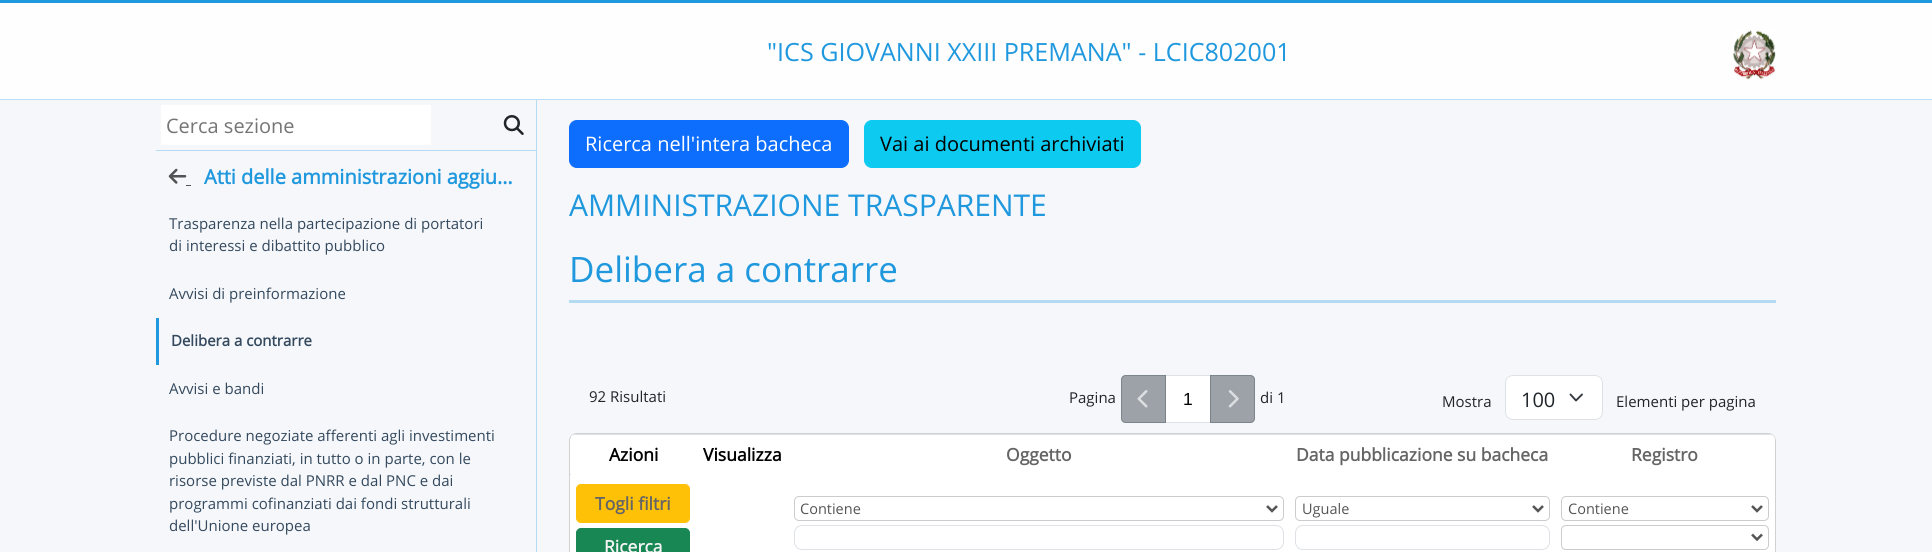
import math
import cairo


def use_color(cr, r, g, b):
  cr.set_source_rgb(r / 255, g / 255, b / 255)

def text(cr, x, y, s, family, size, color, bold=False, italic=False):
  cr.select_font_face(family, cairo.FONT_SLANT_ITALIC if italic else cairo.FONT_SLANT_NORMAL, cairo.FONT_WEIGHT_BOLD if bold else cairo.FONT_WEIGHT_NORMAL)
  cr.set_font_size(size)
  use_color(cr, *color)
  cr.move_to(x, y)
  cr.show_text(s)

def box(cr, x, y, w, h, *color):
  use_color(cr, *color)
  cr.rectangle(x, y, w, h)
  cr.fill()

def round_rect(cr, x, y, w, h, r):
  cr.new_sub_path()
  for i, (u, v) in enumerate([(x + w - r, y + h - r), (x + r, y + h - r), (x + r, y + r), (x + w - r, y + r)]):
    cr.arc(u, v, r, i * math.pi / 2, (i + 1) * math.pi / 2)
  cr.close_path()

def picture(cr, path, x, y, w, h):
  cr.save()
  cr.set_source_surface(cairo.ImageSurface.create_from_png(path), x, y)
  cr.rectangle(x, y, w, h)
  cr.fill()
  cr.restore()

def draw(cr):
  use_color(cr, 245, 247, 250)
  cr.paint()
  box(cr, 0, 3, 1932, 96, 254, 254, 254)
  box(cr, 0, 0, 1932, 3, 31, 152, 222)
  box(cr, 0, 99, 1932, 1, 187, 223, 244)
  picture(cr, "img_01.png", 1733, 30, 43, 50)
  box(cr, 536, 100, 1, 452, 181, 219, 242)
  box(cr, 161, 105, 270, 40, 255, 255, 255)
  picture(cr, "img_02.png", 503, 115, 21, 20)
  box(cr, 156, 150, 380, 1, 181, 219, 242)
  picture(cr, "img_03.png", 168, 168, 19, 16)
  box(cr, 186, 185, 5, 1, 81, 82, 83)
  box(cr, 156, 318, 3, 47, 31, 152, 222)
  use_color(cr, 13, 110, 253)
  round_rect(cr, 569.5, 120.5, 279, 47, 7.5)
  cr.fill_preserve()
  cr.set_line_width(1)
  cr.stroke()
  use_color(cr, 13, 202, 240)
  round_rect(cr, 864.5, 120.5, 276, 47, 7.5)
  cr.fill_preserve()
  cr.stroke()
  box(cr, 569, 300, 1207, 3, 181, 219, 242)
  use_color(cr, 255, 255, 255)
  cr.rectangle(1165.5, 375.5, 45, 47)
  cr.fill_preserve()
  use_color(cr, 222, 226, 230)
  cr.stroke()
  cr.set_source_rgba(0.424, 0.459, 0.49, 0.65)
  cr.new_path()
  cr.move_to(1126, 375)
  cr.line_to(1166, 375)
  cr.line_to(1166, 423)
  cr.line_to(1126, 423)
  cr.curve_to(1123, 423, 1121, 421, 1121, 418)
  cr.line_to(1121, 380)
  cr.curve_to(1121, 377, 1123, 375, 1126, 375)
  cr.close_path()
  cr.fill()
  cr.new_path()
  cr.move_to(1126, 375.5)
  cr.line_to(1165.5, 375.5)
  cr.line_to(1165.5, 422.5)
  cr.line_to(1126, 422.5)
  cr.curve_to(1123.5, 422.5, 1121.5, 420.5, 1121.5, 418)
  cr.line_to(1121.5, 380)
  cr.curve_to(1121.5, 377.5, 1123.5, 375.5, 1126, 375.5)
  cr.close_path()
  cr.stroke()
  picture(cr, "img_04.png", 1137, 390, 11, 18)
  cr.new_path()
  cr.move_to(1210, 375)
  cr.line_to(1250, 375)
  cr.curve_to(1253, 375, 1255, 377, 1255, 380)
  cr.line_to(1255, 418)
  cr.curve_to(1255, 421, 1253, 423, 1250, 423)
  cr.line_to(1210, 423)
  cr.close_path()
  cr.fill()
  cr.new_path()
  cr.move_to(1210.5, 375.5)
  cr.line_to(1250, 375.5)
  cr.curve_to(1252.5, 375.5, 1254.5, 377.5, 1254.5, 380)
  cr.line_to(1254.5, 418)
  cr.curve_to(1254.5, 420.5, 1252.5, 422.5, 1250, 422.5)
  cr.line_to(1210.5, 422.5)
  cr.close_path()
  cr.stroke()
  picture(cr, "img_05.png", 1228, 390, 11, 18)
  use_color(cr, 255, 255, 255)
  round_rect(cr, 1505, 375, 98, 45, 8)
  cr.fill()
  cr.new_path()
  cr.move_to(1570.5, 394.5)
  cr.line_to(1576, 400.5)
  cr.line_to(1582, 394.5)
  use_color(cr, 52, 58, 64)
  cr.set_line_width(1.9)
  cr.set_line_cap(cairo.LINE_CAP_ROUND)
  cr.set_line_join(cairo.LINE_JOIN_ROUND)
  cr.stroke()
  round_rect(cr, 1505.5, 375.5, 97, 44, 7.5)
  use_color(cr, 222, 226, 230)
  cr.set_line_width(1)
  cr.set_line_cap(cairo.LINE_CAP_BUTT)
  cr.set_line_join(cairo.LINE_JOIN_MITER)
  cr.stroke()
  use_color(cr, 255, 255, 255)
  round_rect(cr, 569, 433, 1207, 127, 8)
  cr.fill()
  round_rect(cr, 569.5, 433.5, 1206, 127, 7.5)
  cr.set_source_rgba(0, 0, 0, 0.18)
  cr.stroke()
  cr.save()
  round_rect(cr, 570, 434, 1205, 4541, 6)
  cr.clip()
  box(cr, 570, 434, 1205, 1, 222, 226, 230)
  box(cr, 571, 435, 125, 39, 255, 255, 255)
  box(cr, 1555, 435, 220, 39, 255, 255, 255)
  cr.restore()
  box(cr, 570, 474, 1, 1, 222, 226, 230)
  use_color(cr, 255, 193, 7)
  round_rect(cr, 576.5, 484.5, 113, 38, 4.5)
  cr.fill_preserve()
  cr.stroke()
  use_color(cr, 25, 135, 84)
  round_rect(cr, 576.5, 528.5, 113, 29, 4.5)
  cr.fill_preserve()
  cr.stroke()
  round_rect(cr, 794.5, 496.5, 489, 24, 4.5)
  use_color(cr, 204, 204, 204)
  cr.stroke()
  cr.new_path()
  cr.move_to(1267, 506)
  cr.line_to(1272, 511)
  cr.line_to(1277, 506)
  use_color(cr, 85, 85, 85)
  cr.set_line_width(2.5)
  cr.stroke()
  round_rect(cr, 794.5, 525.5, 489, 24, 7.5)
  use_color(cr, 222, 226, 230)
  cr.set_line_width(1)
  cr.stroke()
  round_rect(cr, 1295.5, 496.5, 254, 24, 4.5)
  use_color(cr, 204, 204, 204)
  cr.stroke()
  cr.new_path()
  cr.move_to(1533, 506)
  cr.line_to(1538, 511)
  cr.line_to(1543, 506)
  use_color(cr, 85, 85, 85)
  cr.set_line_width(2.5)
  cr.stroke()
  round_rect(cr, 1295.5, 525.5, 254, 24, 7.5)
  use_color(cr, 222, 226, 230)
  cr.set_line_width(1)
  cr.stroke()
  round_rect(cr, 1561.5, 496.5, 207, 24, 4.5)
  use_color(cr, 204, 204, 204)
  cr.stroke()
  cr.new_path()
  cr.move_to(1752, 506)
  cr.line_to(1757, 511)
  cr.line_to(1762, 506)
  use_color(cr, 85, 85, 85)
  cr.set_line_width(2.5)
  cr.stroke()
  round_rect(cr, 1561.5, 525.5, 207, 24, 4.5)
  use_color(cr, 204, 204, 204)
  cr.set_line_width(1)
  cr.stroke()
  cr.new_path()
  cr.move_to(1752, 534.5)
  cr.line_to(1757, 539.5)
  cr.line_to(1762, 534.5)
  use_color(cr, 85, 85, 85)
  cr.set_line_width(2.5)
  cr.stroke()
  text(cr, 767, 61, "\"ICS GIOVANNI XXIII PREMANA\" - LCIC802001", "Open Sans", 25.1, (31, 152, 222))
  text(cr, 166, 133, "Cerca sezione", "Open Sans", 20, (117, 117, 117))
  text(cr, 204, 184, "Atti delle amministrazioni aggiu…", "Open Sans", 20, (31, 152, 222), bold=True)
  text(cr, 169, 229, "Trasparenza nella partecipazione di portatori", "Open Sans", 15, (52, 73, 94))
  text(cr, 169, 251, "di interessi e dibattito pubblico", "Open Sans", 15, (52, 73, 94))
  text(cr, 169, 299, "Avvisi di preinformazione", "Open Sans", 15, (52, 73, 94))
  text(cr, 171, 346, "Delibera a contrarre", "Open Sans", 15, (52, 73, 94), bold=True)
  text(cr, 169, 394, "Avvisi e bandi", "Open Sans", 15, (52, 73, 94))
  text(cr, 169, 441, "Procedure negoziate afferenti agli investimenti", "Open Sans", 15, (52, 73, 94))
  text(cr, 169, 464, "pubblici finanziati, in tutto o in parte, con le", "Open Sans", 15, (52, 73, 94))
  text(cr, 169, 486, "risorse previste dal PNRR e dal PNC e dai", "Open Sans", 15, (52, 73, 94))
  text(cr, 169, 509, "programmi cofinanziati dai fondi strutturali", "Open Sans", 15, (52, 73, 94))
  text(cr, 169, 531, "dell'Unione europea", "Open Sans", 15, (52, 73, 94))
  text(cr, 585, 151, "Ricerca nell'intera bacheca", "Open Sans", 20, (255, 255, 255))
  text(cr, 880, 151, "Vai ai documenti archiviati", "Open Sans", 20, (0, 0, 0))
  text(cr, 569, 216, "AMMINISTRAZIONE TRASPARENTE", "Open Sans", 30, (31, 152, 222))
  text(cr, 569, 282, "Delibera a contrarre", "Open Sans", 35, (31, 152, 222))
  text(cr, 589, 402, "92 Risultati", "Open Sans", 15, (33, 37, 41))
  text(cr, 1069, 403, "Pagina", "Open Sans", 15, (33, 37, 41))
  text(cr, 1183, 405, "1", "Liberation Sans", 17.5, (0, 0, 0))
  text(cr, 1260, 403, "di 1", "Open Sans", 15, (33, 37, 41))
  text(cr, 1442, 407, "Mostra", "Open Sans", 15, (33, 37, 41))
  text(cr, 1521, 407, "100", "Open Sans", 20, (33, 37, 41))
  text(cr, 1616, 407, "Elementi per pagina", "Open Sans", 15, (33, 37, 41))
  text(cr, 609, 461, "Azioni", "Open Sans", 17.5, (0, 0, 0), bold=True)
  text(cr, 703, 461, "Visualizza", "Open Sans", 17.5, (0, 0, 0), bold=True)
  text(cr, 1006, 461, "Oggetto", "Open Sans", 17.5, (101, 101, 101), bold=True)
  text(cr, 1296, 461, "Data pubblicazione su bacheca", "Open Sans", 17.5, (101, 101, 101), bold=True)
  text(cr, 1631, 461, "Registro", "Open Sans", 17.5, (101, 101, 101), bold=True)
  text(cr, 595, 510, "Togli filtri", "Open Sans", 17.5, (101, 101, 101), bold=True)
  text(cr, 604, 553, "Ricerca", "Open Sans", 17.5, (244, 244, 244), bold=True)
  text(cr, 800, 514, "Contiene", "Open Sans", 14.5, (85, 85, 85))
  text(cr, 1302, 514, "Uguale", "Open Sans", 14.5, (85, 85, 85))
  text(cr, 1568, 514, "Contiene", "Open Sans", 14.5, (85, 85, 85))


surface = cairo.ImageSurface(cairo.FORMAT_RGB24, 1932, 552)
cr = cairo.Context(surface)
options = cairo.FontOptions()
options.set_hint_metrics(cairo.HINT_METRICS_OFF)
options.set_hint_style(cairo.HINT_STYLE_NONE)
cr.set_font_options(options)
cr.set_miter_limit(4)
draw(cr)
surface.write_to_png("out.png")
